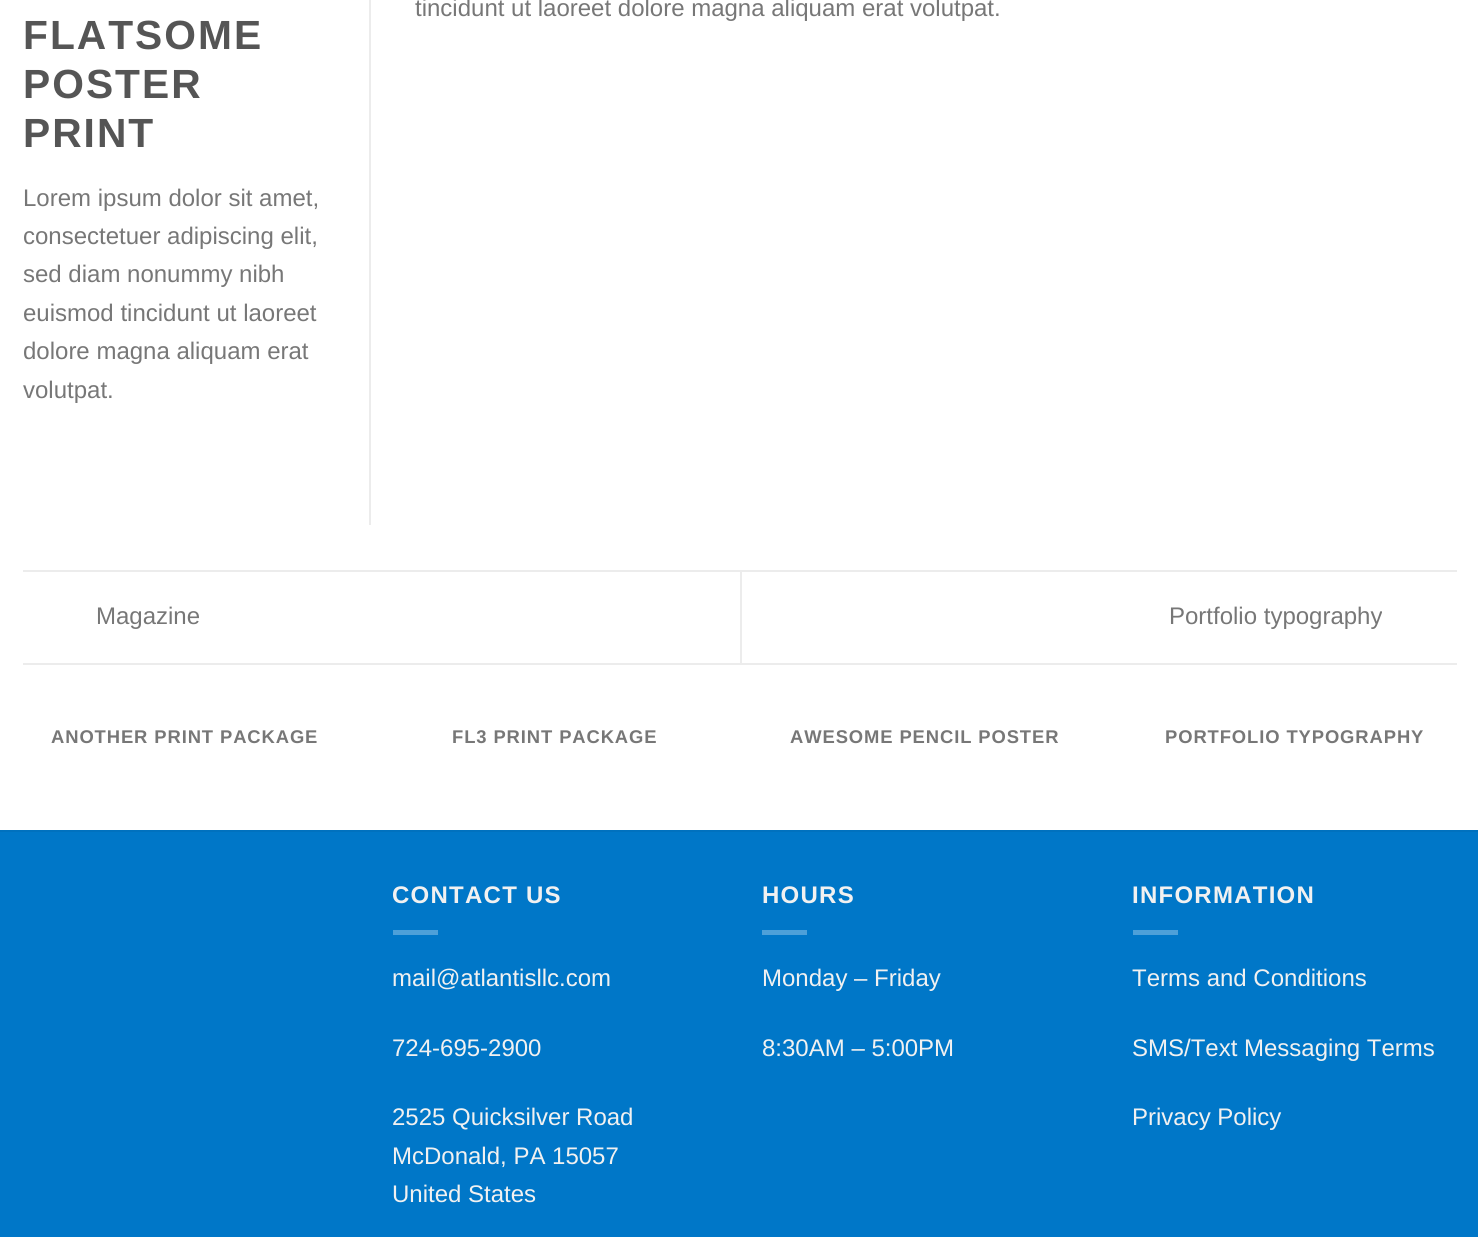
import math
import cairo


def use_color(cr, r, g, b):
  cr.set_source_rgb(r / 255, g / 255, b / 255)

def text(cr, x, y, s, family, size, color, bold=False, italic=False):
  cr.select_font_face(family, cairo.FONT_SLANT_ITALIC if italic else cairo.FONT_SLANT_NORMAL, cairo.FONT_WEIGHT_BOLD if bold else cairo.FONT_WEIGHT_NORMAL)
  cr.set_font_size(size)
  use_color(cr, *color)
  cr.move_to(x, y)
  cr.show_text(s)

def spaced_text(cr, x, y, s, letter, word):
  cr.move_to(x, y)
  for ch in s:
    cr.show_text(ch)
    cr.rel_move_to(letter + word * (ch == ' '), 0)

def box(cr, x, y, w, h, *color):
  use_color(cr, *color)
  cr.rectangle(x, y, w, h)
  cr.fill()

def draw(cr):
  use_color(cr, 255, 255, 255)
  cr.paint()
  box(cr, 369, 0, 2, 525, 236, 236, 236)
  box(cr, 23, 570, 1434, 2, 236, 236, 236)
  box(cr, 23, 663, 1434, 2, 236, 236, 236)
  box(cr, 740, 572, 2, 91, 236, 236, 236)
  box(cr, 0, 832, 1478, 405, 0, 119, 200)
  box(cr, 0, 830, 1478, 2, 0, 113, 190)
  box(cr, 393, 930, 45, 5, 77, 160, 217)
  box(cr, 762, 930, 45, 5, 77, 160, 217)
  box(cr, 1133, 930, 45, 5, 77, 160, 217)
  text(cr, 415, 16, "tincidunt ut laoreet dolore magna aliquam erat volutpat.", "Liberation Sans", 24, (119, 119, 119))
  cr.select_font_face("Liberation Sans", cairo.FONT_SLANT_NORMAL, cairo.FONT_WEIGHT_BOLD)
  cr.set_font_size(40.75)
  use_color(cr, 85, 85, 85)
  spaced_text(cr, 23, 49, "FLATSOME", 2, 0)
  spaced_text(cr, 23, 98, "POSTER", 2, 0)
  spaced_text(cr, 23, 147, "PRINT", 2, 0)
  text(cr, 23, 206, "Lorem ipsum dolor sit amet,", "Liberation Sans", 24, (119, 119, 119))
  text(cr, 23, 244, "consectetuer adipiscing elit,", "Liberation Sans", 24, (119, 119, 119))
  text(cr, 23, 282, "sed diam nonummy nibh", "Liberation Sans", 24, (119, 119, 119))
  text(cr, 23, 321, "euismod tincidunt ut laoreet", "Liberation Sans", 24, (119, 119, 119))
  text(cr, 23, 359, "dolore magna aliquam erat", "Liberation Sans", 24, (119, 119, 119))
  text(cr, 23, 398, "volutpat.", "Liberation Sans", 24, (119, 119, 119))
  text(cr, 96, 624, "Magazine", "Liberation Sans", 24, (119, 119, 119))
  text(cr, 1169, 624, "Portfolio typography", "Liberation Sans", 24, (119, 119, 119))
  cr.select_font_face("Liberation Sans", cairo.FONT_SLANT_NORMAL, cairo.FONT_WEIGHT_BOLD)
  cr.set_font_size(18.4)
  spaced_text(cr, 51, 743, "ANOTHER PRINT PACKAGE", 0.9, 0)
  spaced_text(cr, 452, 743, "FL3 PRINT PACKAGE", 0.9, 0)
  spaced_text(cr, 790, 743, "AWESOME PENCIL POSTER", 0.9, 0)
  spaced_text(cr, 1165, 743, "PORTFOLIO TYPOGRAPHY", 0.9, 0)
  cr.set_font_size(24)
  use_color(cr, 241, 241, 241)
  spaced_text(cr, 392, 903, "CONTACT US", 1.25, 0)
  text(cr, 392, 986, "mail@atlantisllc.com", "Liberation Sans", 24, (241, 241, 241))
  text(cr, 392, 1056, "724-695-2900", "Liberation Sans", 24, (241, 241, 241))
  text(cr, 392, 1125, "2525 Quicksilver Road", "Liberation Sans", 24, (241, 241, 241))
  text(cr, 392, 1164, "McDonald, PA 15057", "Liberation Sans", 24, (241, 241, 241))
  text(cr, 392, 1202, "United States", "Liberation Sans", 24, (241, 241, 241))
  cr.select_font_face("Liberation Sans", cairo.FONT_SLANT_NORMAL, cairo.FONT_WEIGHT_BOLD)
  spaced_text(cr, 762, 903, "HOURS", 1.25, 0)
  text(cr, 762, 986, "Monday – Friday", "Liberation Sans", 24, (241, 241, 241))
  text(cr, 762, 1056, "8:30AM – 5:00PM", "Liberation Sans", 24, (241, 241, 241))
  cr.select_font_face("Liberation Sans", cairo.FONT_SLANT_NORMAL, cairo.FONT_WEIGHT_BOLD)
  spaced_text(cr, 1132, 903, "INFORMATION", 1.25, 0)
  text(cr, 1132, 986, "Terms and Conditions", "Liberation Sans", 24, (241, 241, 241))
  text(cr, 1132, 1056, "SMS/Text Messaging Terms", "Liberation Sans", 24, (241, 241, 241))
  text(cr, 1132, 1125, "Privacy Policy", "Liberation Sans", 24, (241, 241, 241))


surface = cairo.ImageSurface(cairo.FORMAT_RGB24, 1478, 1237)
cr = cairo.Context(surface)
options = cairo.FontOptions()
options.set_hint_metrics(cairo.HINT_METRICS_OFF)
options.set_hint_style(cairo.HINT_STYLE_NONE)
cr.set_font_options(options)
cr.set_miter_limit(4)
draw(cr)
surface.write_to_png("out.png")
